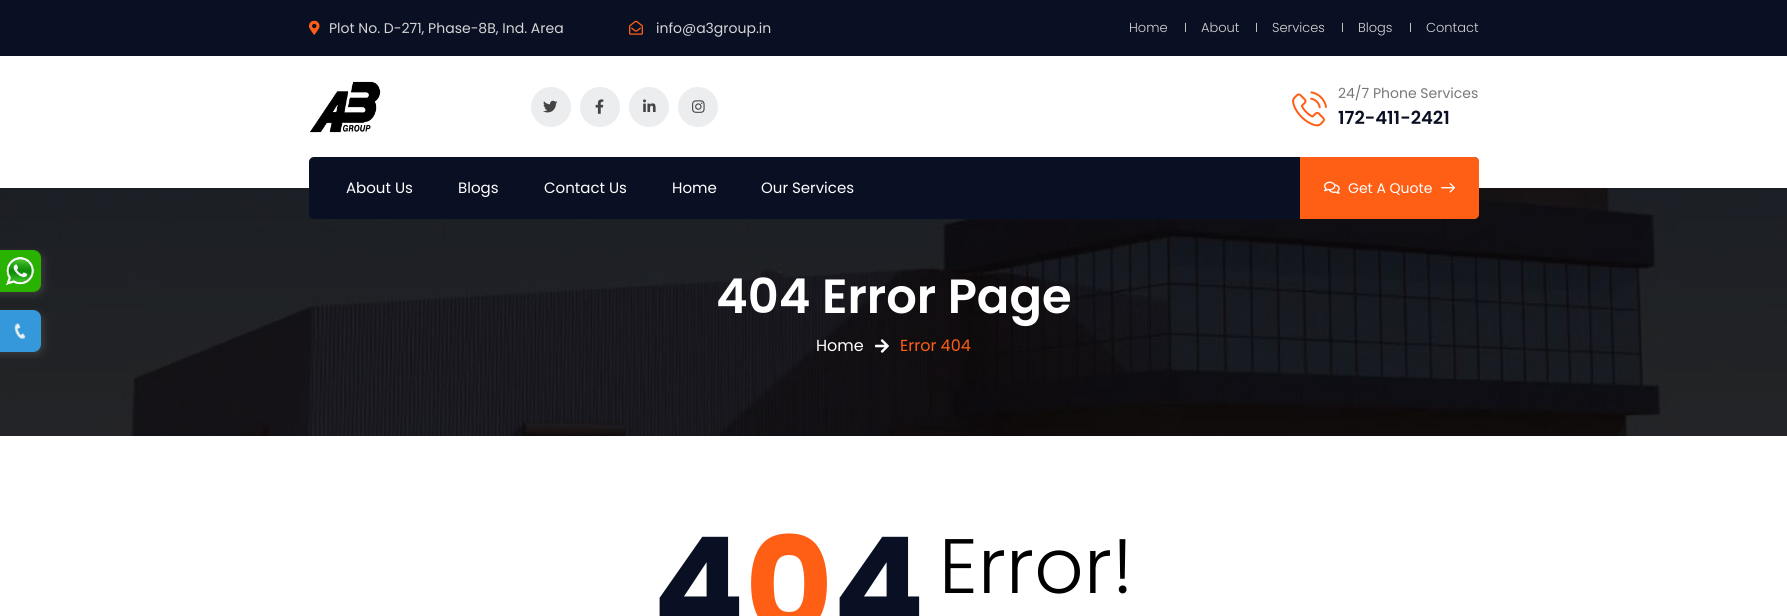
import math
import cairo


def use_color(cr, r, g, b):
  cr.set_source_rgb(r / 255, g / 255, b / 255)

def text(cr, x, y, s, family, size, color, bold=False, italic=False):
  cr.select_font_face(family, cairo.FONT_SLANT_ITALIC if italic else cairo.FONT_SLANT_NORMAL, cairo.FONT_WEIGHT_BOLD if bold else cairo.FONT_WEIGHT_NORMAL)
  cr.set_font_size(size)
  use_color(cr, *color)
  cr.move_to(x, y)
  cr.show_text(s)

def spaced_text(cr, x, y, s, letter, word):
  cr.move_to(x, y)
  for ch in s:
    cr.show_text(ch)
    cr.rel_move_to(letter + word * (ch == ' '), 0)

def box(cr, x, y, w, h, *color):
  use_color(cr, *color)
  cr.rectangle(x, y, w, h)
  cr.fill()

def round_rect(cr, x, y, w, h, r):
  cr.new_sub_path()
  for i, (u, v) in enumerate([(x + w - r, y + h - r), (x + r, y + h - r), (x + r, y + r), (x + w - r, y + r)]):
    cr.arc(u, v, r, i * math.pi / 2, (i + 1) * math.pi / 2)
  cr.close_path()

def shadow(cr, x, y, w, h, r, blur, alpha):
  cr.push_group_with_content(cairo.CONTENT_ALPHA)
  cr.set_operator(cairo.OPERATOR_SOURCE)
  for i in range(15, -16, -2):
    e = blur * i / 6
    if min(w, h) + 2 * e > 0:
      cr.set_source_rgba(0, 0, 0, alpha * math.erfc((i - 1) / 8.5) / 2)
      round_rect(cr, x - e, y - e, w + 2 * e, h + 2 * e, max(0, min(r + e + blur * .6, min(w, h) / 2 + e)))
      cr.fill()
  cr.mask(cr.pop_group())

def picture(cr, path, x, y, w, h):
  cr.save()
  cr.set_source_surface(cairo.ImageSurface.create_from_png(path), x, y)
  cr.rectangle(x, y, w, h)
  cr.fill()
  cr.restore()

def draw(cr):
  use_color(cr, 255, 255, 255)
  cr.paint()
  picture(cr, "img_12.png", 0, 188, 1787, 248)
  use_color(cr, 58, 58, 58)
  shadow(cr, -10, 253, 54, 42, 8, 3.5, 1)
  use_color(cr, 41, 178, 0)
  cr.new_path()
  cr.move_to(-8, 250)
  cr.line_to(33, 250)
  cr.curve_to(37.5, 250, 41, 253.5, 41, 258)
  cr.line_to(41, 284)
  cr.curve_to(41, 288.5, 37.5, 292, 33, 292)
  cr.line_to(-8, 292)
  cr.close_path()
  cr.fill()
  picture(cr, "img_01.png", 6, 257, 28, 29)
  box(cr, 0, 0, 1787, 56, 10, 16, 36)
  picture(cr, "img_02.png", 309, 20, 11, 15)
  picture(cr, "img_03.png", 629, 20, 14, 15)
  picture(cr, "img_04.png", 310, 81, 71, 52)
  use_color(cr, 236, 237, 239)
  cr.arc(551, 107, 20, 0, 2 * math.pi)
  cr.fill()
  picture(cr, "img_05.png", 543, 100, 15, 13)
  cr.arc(600, 107, 20, 0, 2 * math.pi)
  cr.fill()
  picture(cr, "img_06.png", 595, 99, 9, 15)
  cr.arc(649, 107, 20, 0, 2 * math.pi)
  cr.fill()
  picture(cr, "img_07.png", 643, 99, 13, 13)
  cr.arc(698, 107, 20, 0, 2 * math.pi)
  cr.fill()
  picture(cr, "img_08.png", 692, 100, 13, 13)
  picture(cr, "img_09.png", 1292, 91, 35, 36)
  use_color(cr, 10, 16, 36)
  round_rect(cr, 309, 157, 1170, 62, 5)
  cr.fill()
  use_color(cr, 255, 94, 21)
  cr.new_path()
  cr.move_to(1300, 157)
  cr.line_to(1474, 157)
  cr.curve_to(1477, 157, 1479, 159, 1479, 162)
  cr.line_to(1479, 214)
  cr.curve_to(1479, 217, 1477, 219, 1474, 219)
  cr.line_to(1300, 219)
  cr.close_path()
  cr.fill()
  picture(cr, "img_10.png", 1324, 181, 16, 13)
  picture(cr, "img_11.png", 1441, 183, 14, 10)
  picture(cr, "img_13.png", 875, 339, 14, 14)
  use_color(cr, 58, 58, 58)
  shadow(cr, -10, 313, 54, 42, 8, 3.5, 1)
  use_color(cr, 53, 152, 219)
  cr.new_path()
  cr.move_to(-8, 310)
  cr.line_to(33, 310)
  cr.curve_to(37.5, 310, 41, 313.5, 41, 318)
  cr.line_to(41, 344)
  cr.curve_to(41, 348.5, 37.5, 352, 33, 352)
  cr.line_to(-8, 352)
  cr.close_path()
  cr.fill()
  picture(cr, "img_14.png", 14, 323, 12, 16)
  text(cr, 329, 33, "Plot No. D-271, Phase-8B, Ind. Area", "Poppins", 14, (213, 213, 213))
  text(cr, 656, 33, "info@a3group.in", "Poppins", 14, (213, 213, 213))
  text(cr, 1129, 32, "Home", "Poppins Light", 13, (213, 213, 213))
  text(cr, 1184, 32, "I", "Poppins Light", 13, (213, 213, 213))
  text(cr, 1201, 32, "About", "Poppins Light", 13, (213, 213, 213))
  text(cr, 1255, 32, "I", "Poppins Light", 13, (213, 213, 213))
  text(cr, 1272, 32, "Services", "Poppins Light", 13, (213, 213, 213))
  text(cr, 1341, 32, "I", "Poppins Light", 13, (213, 213, 213))
  text(cr, 1358, 32, "Blogs", "Poppins Light", 13, (213, 213, 213))
  text(cr, 1409, 32, "I", "Poppins Light", 13, (213, 213, 213))
  text(cr, 1426, 32, "Contact", "Poppins Light", 13, (213, 213, 213))
  text(cr, 1338, 98, "24/7 Phone Services", "Poppins", 14, (119, 119, 119))
  text(cr, 1338, 124, "172-411-2421", "Poppins SemiBold", 18, (10, 16, 36))
  text(cr, 346, 193, "About Us", "Poppins", 15, (255, 255, 255))
  text(cr, 458, 193, "Blogs", "Poppins", 15, (255, 255, 255))
  text(cr, 544, 193, "Contact Us", "Poppins", 15, (255, 255, 255))
  text(cr, 672, 193, "Home", "Poppins", 15, (255, 255, 255))
  text(cr, 761, 193, "Our Services", "Poppins", 15, (255, 255, 255))
  text(cr, 1348, 193, "Get A Quote", "Poppins", 14, (255, 255, 255))
  text(cr, 716, 313, "404 Error Page", "Poppins SemiBold", 48, (255, 255, 255))
  text(cr, 816, 351, "Home", "Poppins", 16, (255, 255, 255))
  text(cr, 900, 351, "Error 404", "Poppins", 16, (255, 94, 21))
  text(cr, 653, 634, "4", "Poppins", 135, (10, 16, 36), bold=True)
  text(cr, 745, 634, "0", "Poppins", 135, (255, 94, 21), bold=True)
  text(cr, 833, 634, "4", "Poppins", 135, (10, 16, 36), bold=True)
  cr.select_font_face("Poppins Light")
  cr.set_font_size(77)
  use_color(cr, 0, 0, 0)
  spaced_text(cr, 939, 593, "Error!", 0.25, 0)


surface = cairo.ImageSurface(cairo.FORMAT_RGB24, 1787, 616)
cr = cairo.Context(surface)
options = cairo.FontOptions()
options.set_hint_metrics(cairo.HINT_METRICS_OFF)
options.set_hint_style(cairo.HINT_STYLE_NONE)
cr.set_font_options(options)
cr.set_miter_limit(4)
draw(cr)
surface.write_to_png("out.png")
